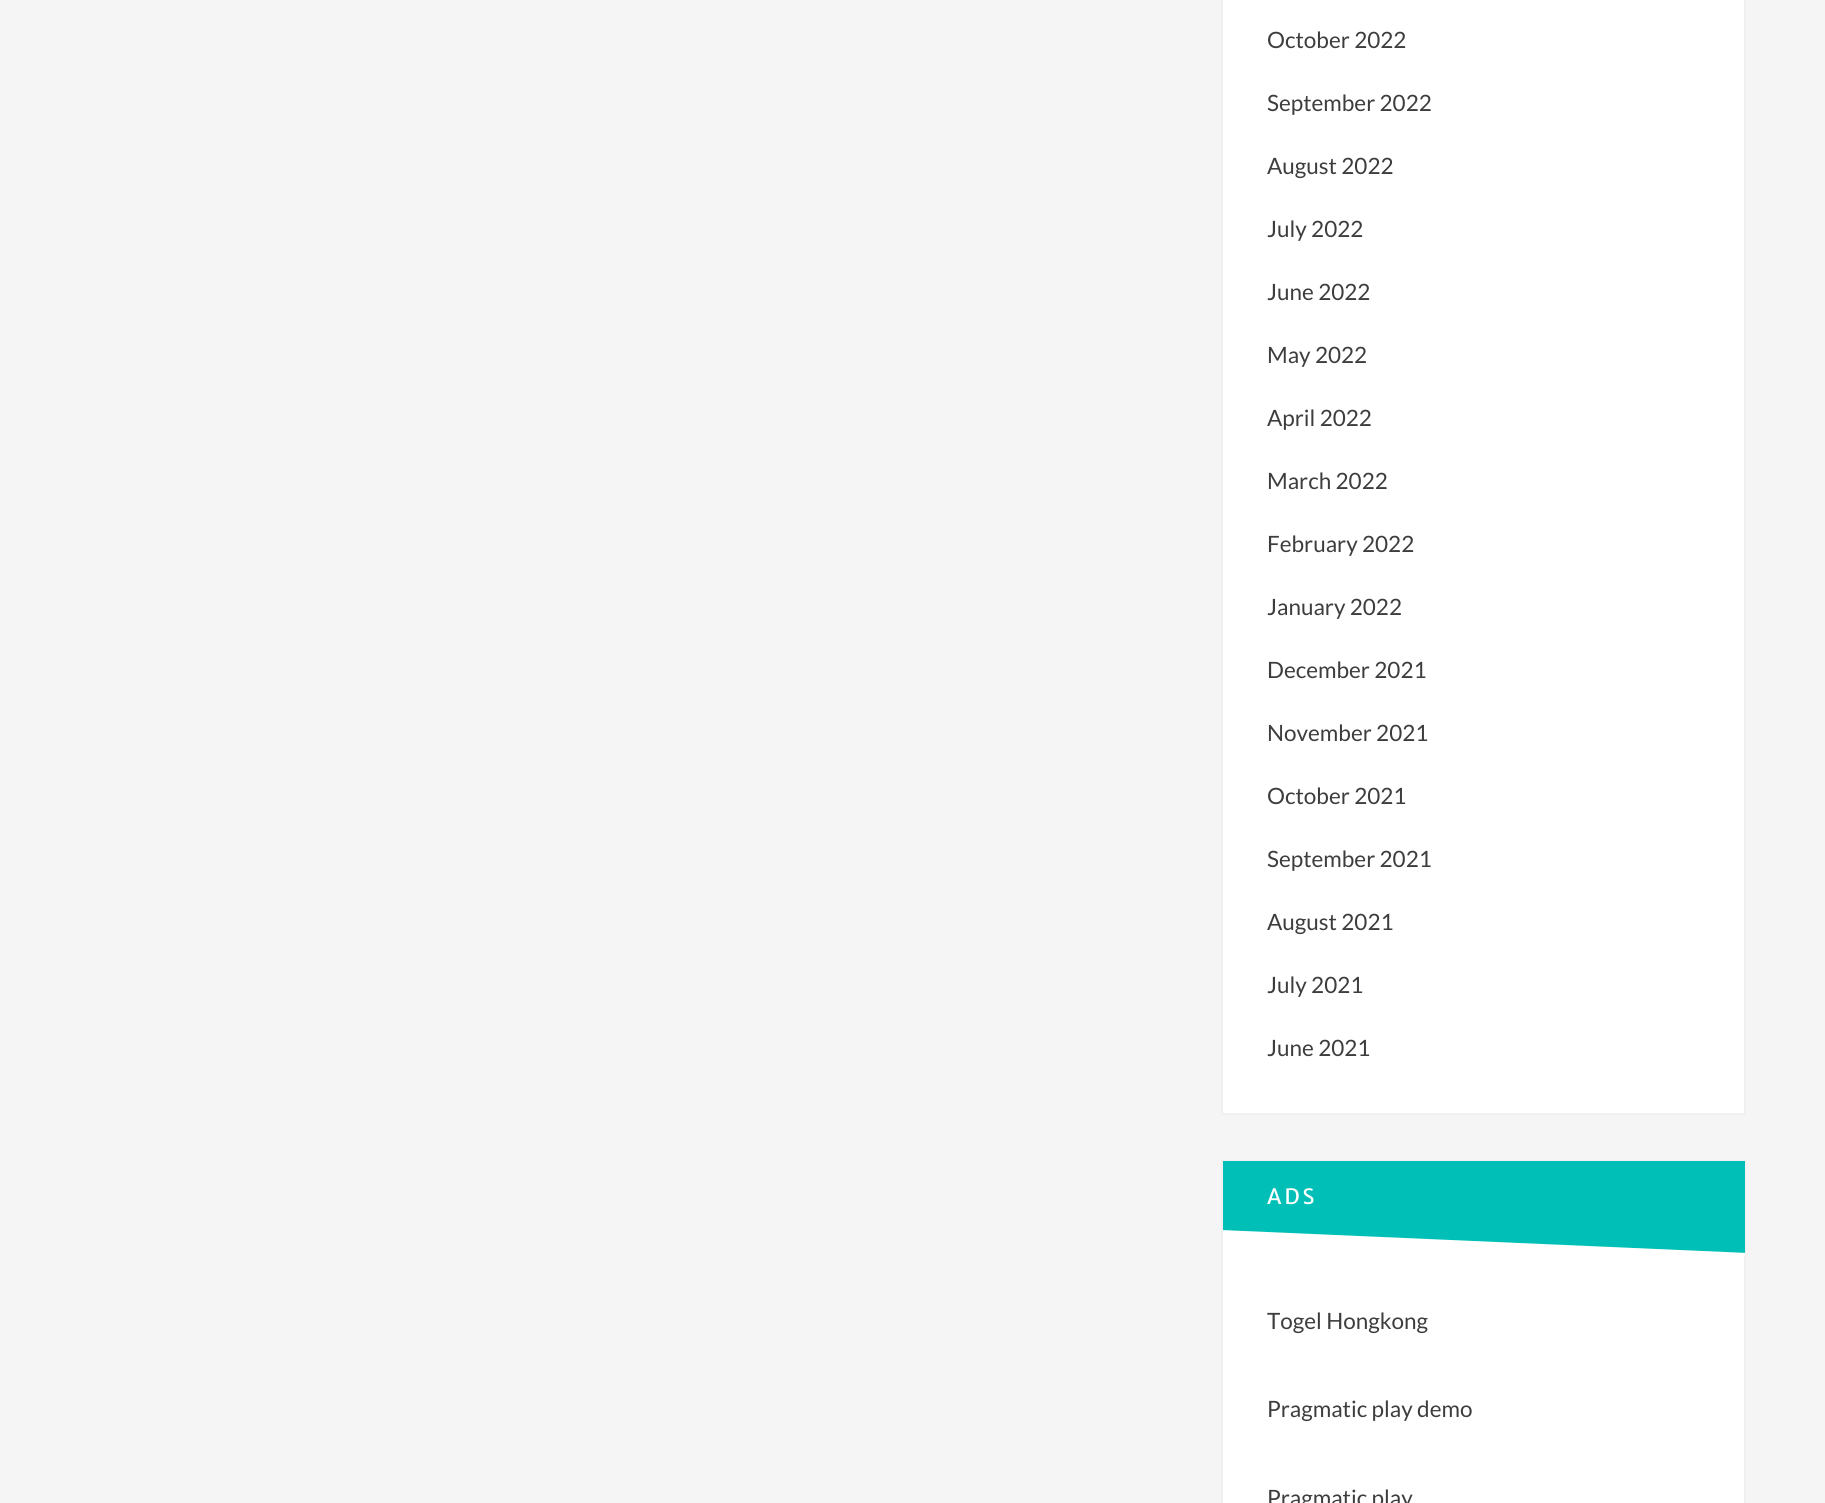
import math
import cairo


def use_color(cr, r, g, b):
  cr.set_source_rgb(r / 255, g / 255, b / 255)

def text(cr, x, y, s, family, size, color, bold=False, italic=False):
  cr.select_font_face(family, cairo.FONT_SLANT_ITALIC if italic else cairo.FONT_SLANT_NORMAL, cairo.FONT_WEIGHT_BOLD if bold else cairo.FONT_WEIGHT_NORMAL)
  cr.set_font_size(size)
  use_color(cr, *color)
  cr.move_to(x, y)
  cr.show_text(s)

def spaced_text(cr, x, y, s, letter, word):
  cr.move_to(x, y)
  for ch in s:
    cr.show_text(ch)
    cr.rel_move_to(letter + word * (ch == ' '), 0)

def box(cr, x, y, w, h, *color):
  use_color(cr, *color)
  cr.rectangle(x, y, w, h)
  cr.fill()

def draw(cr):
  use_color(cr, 245, 245, 245)
  cr.paint()
  use_color(cr, 255, 255, 255)
  cr.rectangle(1222, -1, 523, 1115)
  cr.fill_preserve()
  use_color(cr, 240, 240, 240)
  cr.stroke()
  box(cr, 1223, 1256, 521, 247, 255, 255, 255)
  cr.rectangle(1222, 1161, 523, 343)
  use_color(cr, 240, 240, 240)
  cr.stroke()
  box(cr, 1223, 1161, 522, 92, 0, 191, 182)
  cr.save()
  cr.rectangle(1223, 1161, 522, 95)
  cr.clip()
  use_color(cr, 255, 255, 255)
  cr.new_path()
  cr.move_to(1198, 1229)
  cr.line_to(1771, 1254)
  cr.line_to(1768, 1329)
  cr.line_to(1194, 1304)
  cr.close_path()
  cr.fill()
  cr.restore()
  text(cr, 1267, 48, "October 2022", "Lato", 22.5, (61, 61, 61))
  text(cr, 1267, 111, "September 2022", "Lato", 22.5, (61, 61, 61))
  text(cr, 1267, 174, "August 2022", "Lato", 22.5, (61, 61, 61))
  text(cr, 1267, 237, "July 2022", "Lato", 22.5, (61, 61, 61))
  text(cr, 1267, 300, "June 2022", "Lato", 22.5, (61, 61, 61))
  text(cr, 1267, 363, "May 2022", "Lato", 22.5, (61, 61, 61))
  text(cr, 1267, 426, "April 2022", "Lato", 22.5, (61, 61, 61))
  text(cr, 1267, 489, "March 2022", "Lato", 22.5, (61, 61, 61))
  text(cr, 1267, 552, "February 2022", "Lato", 22.5, (61, 61, 61))
  text(cr, 1267, 615, "January 2022", "Lato", 22.5, (61, 61, 61))
  text(cr, 1267, 678, "December 2021", "Lato", 22.5, (61, 61, 61))
  text(cr, 1267, 741, "November 2021", "Lato", 22.5, (61, 61, 61))
  text(cr, 1267, 804, "October 2021", "Lato", 22.5, (61, 61, 61))
  text(cr, 1267, 867, "September 2021", "Lato", 22.5, (61, 61, 61))
  text(cr, 1267, 930, "August 2021", "Lato", 22.5, (61, 61, 61))
  text(cr, 1267, 993, "July 2021", "Lato", 22.5, (61, 61, 61))
  text(cr, 1267, 1056, "June 2021", "Lato", 22.5, (61, 61, 61))
  cr.select_font_face("Merriweather Sans")
  cr.set_font_size(21)
  use_color(cr, 255, 255, 255)
  spaced_text(cr, 1267, 1204, "ADS", 3, 0)
  text(cr, 1267, 1329, "Togel Hongkong", "Lato", 22.5, (61, 61, 61))
  text(cr, 1267, 1417, "Pragmatic play demo", "Lato", 22.5, (61, 61, 61))
  text(cr, 1267, 1506, "Pragmatic play", "Lato", 22.5, (61, 61, 61))


surface = cairo.ImageSurface(cairo.FORMAT_RGB24, 1825, 1503)
cr = cairo.Context(surface)
options = cairo.FontOptions()
options.set_hint_metrics(cairo.HINT_METRICS_OFF)
options.set_hint_style(cairo.HINT_STYLE_NONE)
cr.set_font_options(options)
cr.set_miter_limit(4)
draw(cr)
surface.write_to_png("out.png")
